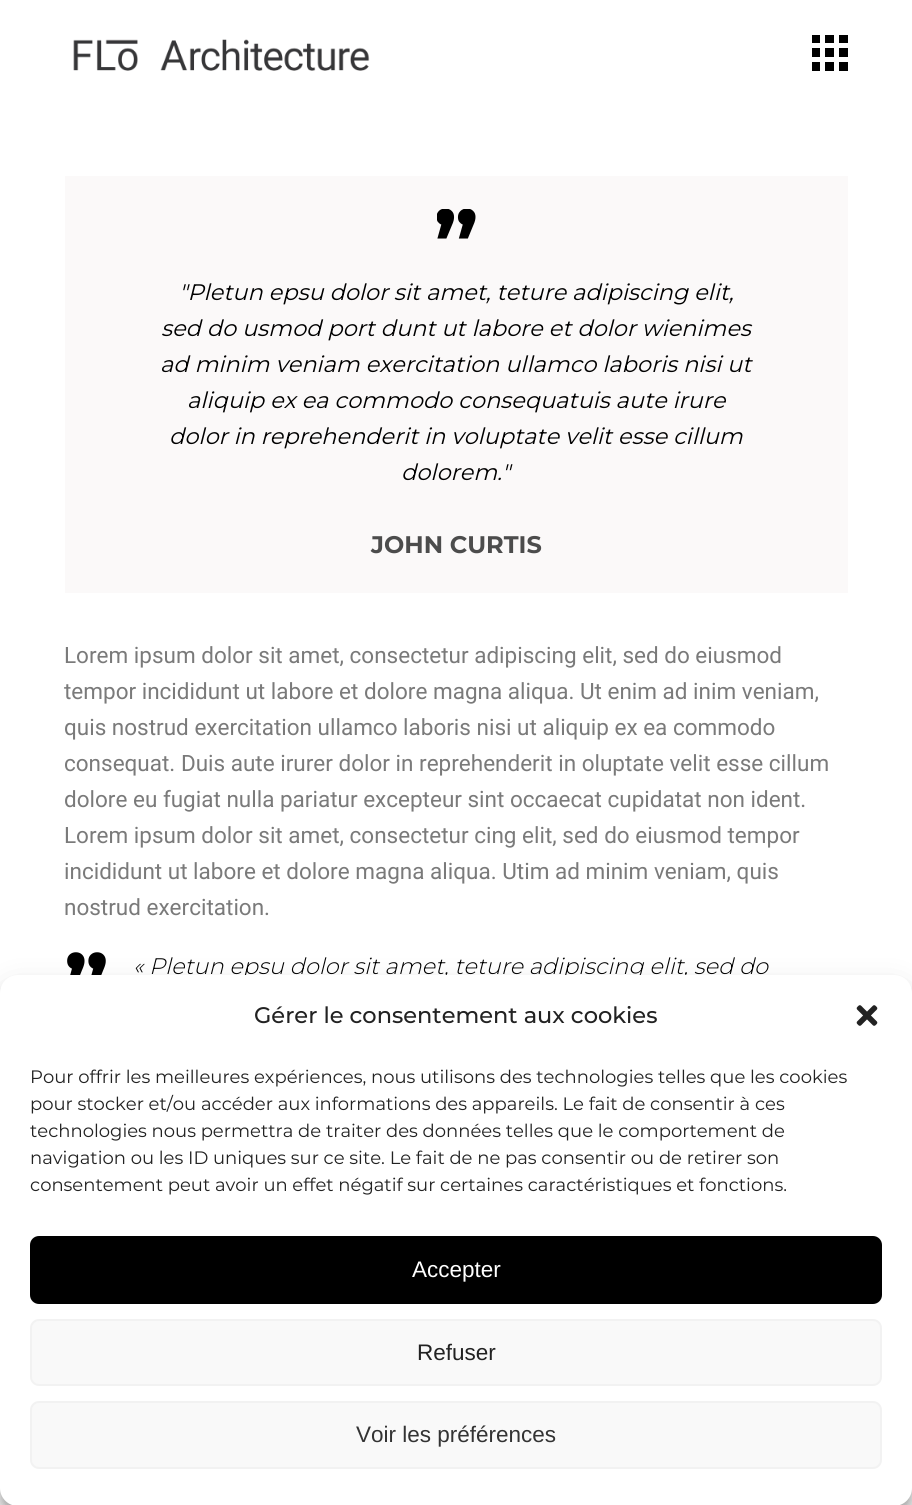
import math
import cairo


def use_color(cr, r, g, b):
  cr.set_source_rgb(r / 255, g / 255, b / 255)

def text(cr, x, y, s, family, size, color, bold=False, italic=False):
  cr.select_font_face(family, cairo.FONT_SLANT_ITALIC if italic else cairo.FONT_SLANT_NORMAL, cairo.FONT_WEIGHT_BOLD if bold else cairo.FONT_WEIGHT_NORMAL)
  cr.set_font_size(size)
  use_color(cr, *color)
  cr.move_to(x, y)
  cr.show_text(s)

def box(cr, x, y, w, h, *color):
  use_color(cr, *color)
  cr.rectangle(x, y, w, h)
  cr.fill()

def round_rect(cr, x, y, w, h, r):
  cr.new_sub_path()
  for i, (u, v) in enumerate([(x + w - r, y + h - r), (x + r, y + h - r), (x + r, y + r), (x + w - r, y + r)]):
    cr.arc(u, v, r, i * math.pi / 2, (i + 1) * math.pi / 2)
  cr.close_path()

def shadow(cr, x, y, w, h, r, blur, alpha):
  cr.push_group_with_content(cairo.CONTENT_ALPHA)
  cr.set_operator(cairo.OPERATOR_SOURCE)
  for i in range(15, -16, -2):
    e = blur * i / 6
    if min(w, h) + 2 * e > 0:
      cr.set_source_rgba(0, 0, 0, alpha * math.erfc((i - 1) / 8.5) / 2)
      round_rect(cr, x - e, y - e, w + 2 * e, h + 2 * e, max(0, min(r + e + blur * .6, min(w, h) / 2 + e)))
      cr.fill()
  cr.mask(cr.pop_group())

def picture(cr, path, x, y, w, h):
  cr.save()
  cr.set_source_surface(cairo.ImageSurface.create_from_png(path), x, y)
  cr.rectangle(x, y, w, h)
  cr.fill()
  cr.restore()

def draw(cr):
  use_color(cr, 255, 255, 255)
  cr.paint()
  picture(cr, "img_01.png", 73, 39, 297, 32)
  picture(cr, "img_02.png", 812, 35, 36, 36)
  box(cr, 65, 176, 783, 417, 251, 249, 249)
  picture(cr, "img_03.png", 437, 209, 39, 30)
  use_color(cr, 0, 0, 0)
  shadow(cr, 0, 984, 912, 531, 18, 4.5, 0.23)
  shadow(cr, 0, 990, 912, 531, 18, 15, 0.19)
  use_color(cr, 128, 128, 128)
  shadow(cr, 807, 1395, 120, 90, 3, 4, 1)
  text(cr, 179, 300, "\"Pletun epsu dolor sit amet, teture adipiscing elit,", "Montserrat", 22.5, (0, 0, 0), italic=True)
  text(cr, 161, 336, "sed do usmod port dunt ut labore et dolor wienimes", "Montserrat", 22.5, (0, 0, 0), italic=True)
  text(cr, 160, 372, "ad minim veniam exercitation ullamco laboris nisi ut", "Montserrat", 22.5, (0, 0, 0), italic=True)
  text(cr, 187, 408, "aliquip ex ea commodo consequatuis aute irure", "Montserrat", 22.5, (0, 0, 0), italic=True)
  text(cr, 169, 444, "dolor in reprehenderit in voluptate velit esse cillum", "Montserrat", 22.5, (0, 0, 0), italic=True)
  text(cr, 401, 480, "dolorem.\"", "Montserrat", 22.5, (0, 0, 0), italic=True)
  text(cr, 371, 553, "JOHN CURTIS", "Montserrat", 24, (76, 76, 76), bold=True)
  text(cr, 64, 663, "Lorem ipsum dolor sit amet, consectetur adipiscing elit, sed do eiusmod", "Roboto", 22.5, (122, 122, 122))
  text(cr, 64, 699, "tempor incididunt ut labore et dolore magna aliqua. Ut enim ad inim veniam,", "Roboto", 22.5, (122, 122, 122))
  text(cr, 64, 735, "quis nostrud exercitation ullamco laboris nisi ut aliquip ex ea commodo", "Roboto", 22.5, (122, 122, 122))
  text(cr, 64, 771, "consequat. Duis aute irurer dolor in reprehenderit in oluptate velit esse cillum", "Roboto", 22.5, (122, 122, 122))
  text(cr, 64, 807, "dolore eu fugiat nulla pariatur excepteur sint occaecat cupidatat non ident.", "Roboto", 22.5, (122, 122, 122))
  text(cr, 64, 843, "Lorem ipsum dolor sit amet, consectetur cing elit, sed do eiusmod tempor", "Roboto", 22.5, (122, 122, 122))
  text(cr, 64, 879, "incididunt ut labore et dolore magna aliqua. Utim ad minim veniam, quis", "Roboto", 22.5, (122, 122, 122))
  text(cr, 64, 915, "nostrud exercitation.", "Roboto", 22.5, (122, 122, 122))
  text(cr, 64, 969, "„", "Montserrat", 90, (0, 0, 0), bold=True)
  text(cr, 133, 974, "« Pletun epsu dolor sit amet, teture adipiscing elit, sed do", "Montserrat Light", 22.5, (0, 0, 0), italic=True)
  use_color(cr, 255, 255, 255)
  round_rect(cr, 0, 975, 912, 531, 18)
  cr.fill()
  text(cr, 254, 1023, "Gérer le consentement aux cookies", "Montserrat Medium", 22.5, (34, 34, 34))
  picture(cr, "img_04.png", 856, 1005, 22, 21)
  text(cr, 30, 1083, "Pour offrir les meilleures expériences, nous utilisons des technologies telles que les cookies", "Montserrat", 18, (34, 34, 34))
  text(cr, 30, 1110, "pour stocker et/ou accéder aux informations des appareils. Le fait de consentir à ces", "Montserrat", 18, (34, 34, 34))
  text(cr, 30, 1137, "technologies nous permettra de traiter des données telles que le comportement de", "Montserrat", 18, (34, 34, 34))
  text(cr, 30, 1164, "navigation ou les ID uniques sur ce site. Le fait de ne pas consentir ou de retirer son", "Montserrat", 18, (34, 34, 34))
  text(cr, 30, 1191, "consentement peut avoir un effet négatif sur certaines caractéristiques et fonctions.", "Montserrat", 18, (34, 34, 34))
  use_color(cr, 0, 0, 0)
  round_rect(cr, 31, 1237, 850, 66, 8)
  cr.fill_preserve()
  cr.stroke()
  text(cr, 412, 1277, "Accepter", "Liberation Sans", 22.5, (255, 255, 255))
  use_color(cr, 249, 249, 249)
  round_rect(cr, 31, 1320, 850, 65, 8)
  cr.fill_preserve()
  use_color(cr, 242, 242, 242)
  cr.stroke()
  text(cr, 417, 1360, "Refuser", "Liberation Sans", 22.5, (34, 34, 34))
  use_color(cr, 249, 249, 249)
  round_rect(cr, 31, 1402, 850, 66, 8)
  cr.fill_preserve()
  use_color(cr, 242, 242, 242)
  cr.stroke()
  text(cr, 356, 1442, "Voir les préférences", "Liberation Sans", 22.5, (51, 51, 51))


surface = cairo.ImageSurface(cairo.FORMAT_RGB24, 912, 1505)
cr = cairo.Context(surface)
options = cairo.FontOptions()
options.set_hint_metrics(cairo.HINT_METRICS_OFF)
options.set_hint_style(cairo.HINT_STYLE_NONE)
cr.set_font_options(options)
cr.set_miter_limit(4)
draw(cr)
surface.write_to_png("out.png")
